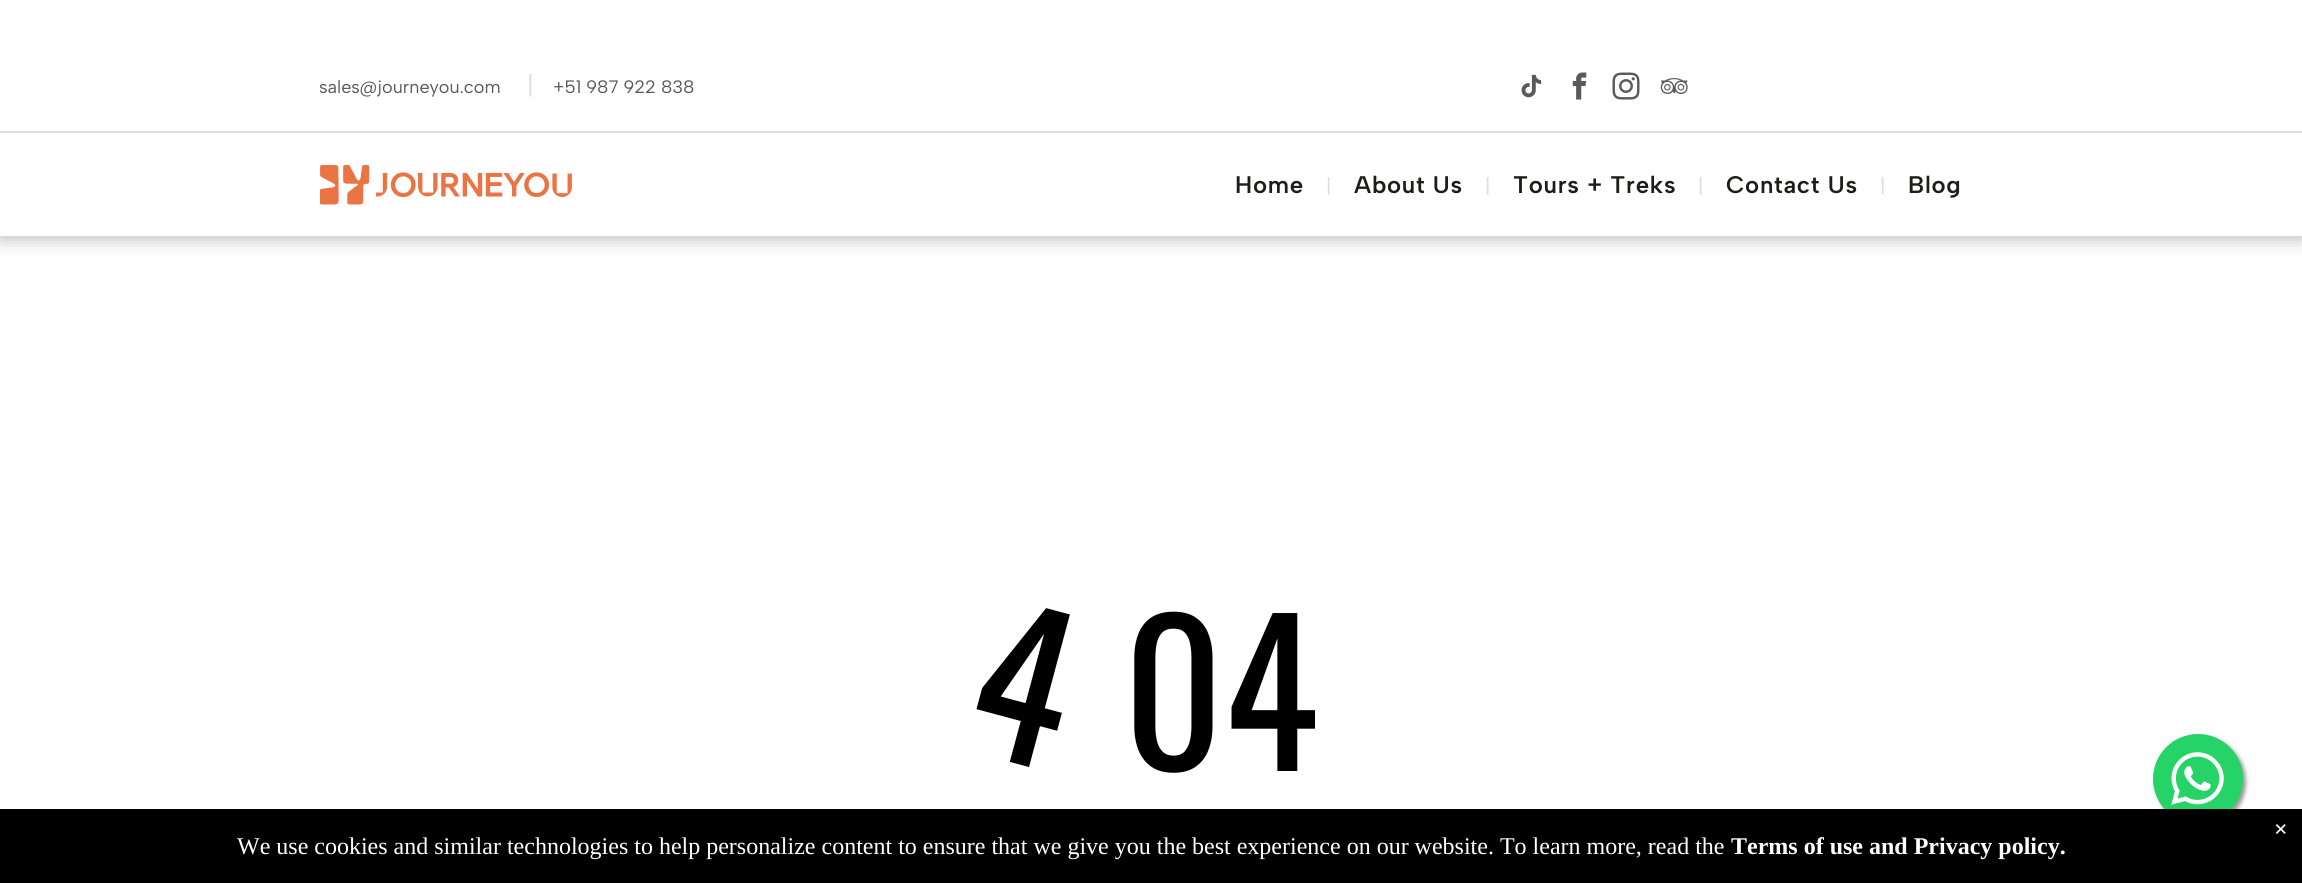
import math
import cairo


def use_color(cr, r, g, b):
  cr.set_source_rgb(r / 255, g / 255, b / 255)

def text(cr, x, y, s, family, size, color, bold=False, italic=False):
  cr.select_font_face(family, cairo.FONT_SLANT_ITALIC if italic else cairo.FONT_SLANT_NORMAL, cairo.FONT_WEIGHT_BOLD if bold else cairo.FONT_WEIGHT_NORMAL)
  cr.set_font_size(size)
  use_color(cr, *color)
  cr.move_to(x, y)
  cr.show_text(s)

def spaced_text(cr, x, y, s, letter, word):
  cr.move_to(x, y)
  for ch in s:
    cr.show_text(ch)
    cr.rel_move_to(letter + word * (ch == ' '), 0)

def box(cr, x, y, w, h, *color):
  use_color(cr, *color)
  cr.rectangle(x, y, w, h)
  cr.fill()

def round_rect(cr, x, y, w, h, r):
  cr.new_sub_path()
  for i, (u, v) in enumerate([(x + w - r, y + h - r), (x + r, y + h - r), (x + r, y + r), (x + w - r, y + r)]):
    cr.arc(u, v, r, i * math.pi / 2, (i + 1) * math.pi / 2)
  cr.close_path()

def shadow(cr, x, y, w, h, r, blur, alpha):
  cr.push_group_with_content(cairo.CONTENT_ALPHA)
  cr.set_operator(cairo.OPERATOR_SOURCE)
  for i in range(15, -16, -2):
    e = blur * i / 6
    if min(w, h) + 2 * e > 0:
      cr.set_source_rgba(0, 0, 0, alpha * math.erfc((i - 1) / 8.5) / 2)
      round_rect(cr, x - e, y - e, w + 2 * e, h + 2 * e, max(0, min(r + e + blur * .6, min(w, h) / 2 + e)))
      cr.fill()
  cr.mask(cr.pop_group())

def picture(cr, path, x, y, w, h):
  cr.save()
  cr.set_source_surface(cairo.ImageSurface.create_from_png(path), x, y)
  cr.rectangle(x, y, w, h)
  cr.fill()
  cr.restore()

def draw(cr):
  use_color(cr, 255, 255, 255)
  cr.paint()
  use_color(cr, 0, 0, 0)
  shadow(cr, 0, 5, 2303, 235, 0, 8, 0.25)
  box(cr, 0, 0, 2302, 236, 255, 255, 255)
  picture(cr, "img_01.png", 1521, 74, 21, 24)
  picture(cr, "img_02.png", 1572, 72, 15, 28)
  picture(cr, "img_03.png", 1612, 72, 28, 28)
  picture(cr, "img_04.png", 1660, 78, 28, 16)
  box(cr, 0, 131, 2302, 2, 221, 221, 221)
  picture(cr, "img_05.png", 320, 165, 252, 40)
  box(cr, 609, 183, 530, 2, 252, 252, 252)
  use_color(cr, 153, 153, 153)
  shadow(cr, 2156, 737, 90, 90, 45, 2, 1)
  use_color(cr, 37, 211, 102)
  cr.arc(2198, 779, 45, 0, 2 * math.pi)
  cr.fill()
  picture(cr, "img_06.png", 2171, 752, 53, 53)
  box(cr, 0, 809, 2302, 74, 0, 0, 0)
  text(cr, 319, 93, "sales@journeyou.com", "Albert Sans", 18, (90, 90, 90))
  text(cr, 527, 93, "|", "Roboto", 27, (223, 223, 223))
  text(cr, 553, 93, "+51 987 922 838", "Albert Sans", 18, (90, 90, 90))
  cr.select_font_face("Albert Sans SemiBold")
  cr.set_font_size(24)
  use_color(cr, 29, 29, 27)
  spaced_text(cr, 1235, 193, "Home", 0.75, 0)
  text(cr, 1326, 192, "|", "Roboto", 21, (223, 223, 223), bold=True)
  cr.select_font_face("Albert Sans SemiBold")
  cr.set_font_size(24)
  use_color(cr, 29, 29, 27)
  spaced_text(cr, 1354, 193, "About Us", 0.75, 0)
  text(cr, 1485, 192, "|", "Roboto", 21, (223, 223, 223), bold=True)
  cr.select_font_face("Albert Sans SemiBold")
  cr.set_font_size(24)
  use_color(cr, 29, 29, 27)
  spaced_text(cr, 1513, 193, "Tours + Treks", 0.75, 0)
  text(cr, 1698, 192, "|", "Roboto", 21, (223, 223, 223), bold=True)
  cr.select_font_face("Albert Sans SemiBold")
  cr.set_font_size(24)
  use_color(cr, 29, 29, 27)
  spaced_text(cr, 1726, 193, "Contact Us", 0.75, 0)
  text(cr, 1880, 192, "|", "Roboto", 21, (223, 223, 223), bold=True)
  cr.select_font_face("Albert Sans SemiBold")
  cr.set_font_size(24)
  use_color(cr, 29, 29, 27)
  spaced_text(cr, 1908, 193, "Blog", 0.75, 0)
  cr.save()
  cr.translate(958, 748)
  cr.rotate(15 * math.pi / 180)
  text(cr, 0, 0, "4", "Oswald", 195, (0, 0, 0))
  cr.restore()
  text(cr, 1123, 771, "04", "Oswald", 195, (0, 0, 0))
  text(cr, 2274, 837, "×", "Liberation Serif", 24, (255, 255, 255), bold=True)
  text(cr, 237, 854, "We use cookies and similar technologies to help personalize content to ensure that we give you the best experience on our website. To learn more, read the", "Liberation Serif", 24, (255, 255, 255))
  text(cr, 1731, 854, "Terms of use and Privacy policy.", "Liberation Serif", 24, (255, 255, 255), bold=True)


surface = cairo.ImageSurface(cairo.FORMAT_RGB24, 2302, 883)
cr = cairo.Context(surface)
options = cairo.FontOptions()
options.set_hint_metrics(cairo.HINT_METRICS_OFF)
options.set_hint_style(cairo.HINT_STYLE_NONE)
cr.set_font_options(options)
cr.set_miter_limit(4)
draw(cr)
surface.write_to_png("out.png")
